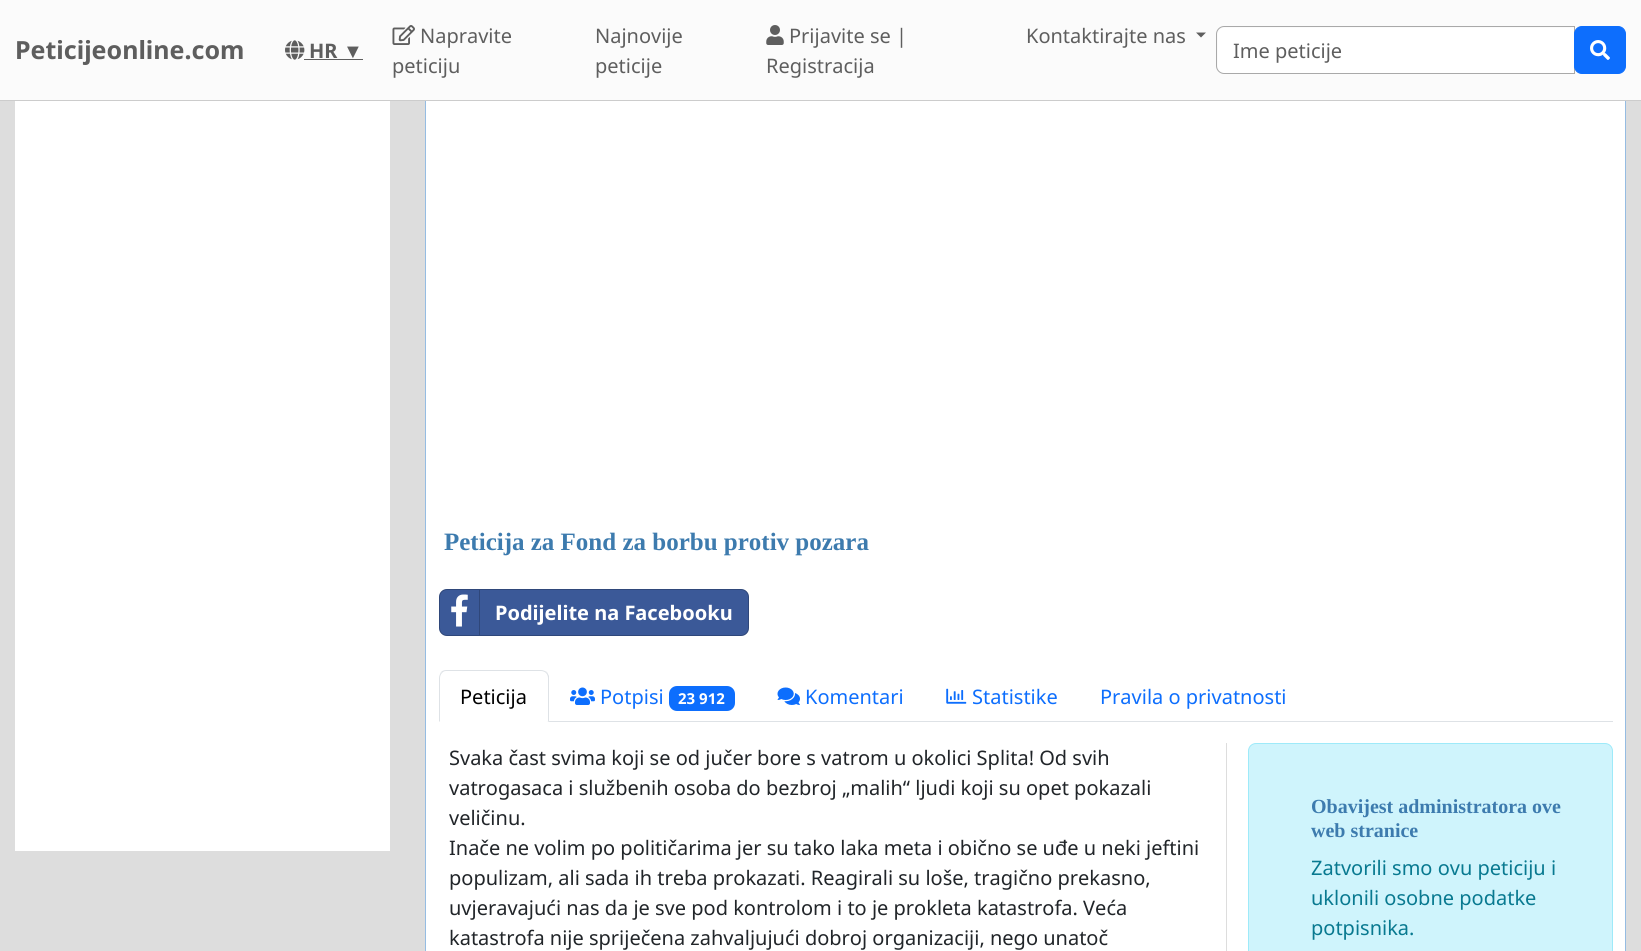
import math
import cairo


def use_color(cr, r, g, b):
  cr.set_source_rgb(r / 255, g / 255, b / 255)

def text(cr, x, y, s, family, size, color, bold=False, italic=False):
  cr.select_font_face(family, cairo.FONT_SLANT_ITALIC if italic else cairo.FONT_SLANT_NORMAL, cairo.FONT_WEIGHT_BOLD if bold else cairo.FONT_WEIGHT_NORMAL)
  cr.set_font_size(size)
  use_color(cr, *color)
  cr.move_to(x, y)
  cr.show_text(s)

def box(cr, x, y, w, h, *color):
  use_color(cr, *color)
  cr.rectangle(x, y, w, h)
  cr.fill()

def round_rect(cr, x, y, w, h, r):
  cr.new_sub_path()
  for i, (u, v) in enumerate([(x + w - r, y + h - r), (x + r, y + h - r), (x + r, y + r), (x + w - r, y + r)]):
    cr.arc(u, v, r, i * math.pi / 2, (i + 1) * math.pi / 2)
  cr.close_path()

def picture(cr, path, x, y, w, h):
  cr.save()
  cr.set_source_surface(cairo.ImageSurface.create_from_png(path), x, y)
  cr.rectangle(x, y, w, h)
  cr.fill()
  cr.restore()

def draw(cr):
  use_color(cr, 221, 221, 221)
  cr.paint()
  box(cr, 0, 0, 1641, 100, 251, 251, 251)
  box(cr, 0, 100, 1641, 1, 204, 204, 204)
  picture(cr, "img_01.png", 285, 40, 20, 20)
  box(cr, 304, 59, 59, 1, 94, 94, 94)
  picture(cr, "img_02.png", 392, 25, 23, 20)
  picture(cr, "img_03.png", 766, 25, 18, 20)
  cr.new_path()
  cr.move_to(1196, 32.5)
  cr.line_to(1206, 32.5)
  cr.line_to(1201, 37.5)
  cr.close_path()
  cr.fill()
  use_color(cr, 255, 255, 255)
  cr.new_path()
  cr.move_to(1224, 28)
  cr.line_to(1574, 28)
  cr.line_to(1574, 73)
  cr.line_to(1224, 73)
  cr.curve_to(1220.5, 73, 1218, 70.5, 1218, 67)
  cr.line_to(1218, 34)
  cr.curve_to(1218, 30.5, 1220.5, 28, 1224, 28)
  cr.close_path()
  cr.fill()
  cr.new_path()
  cr.move_to(1224, 26.5)
  cr.line_to(1574.5, 26.5)
  cr.line_to(1574.5, 73.5)
  cr.line_to(1224, 73.5)
  cr.curve_to(1220, 73.5, 1216.5, 70, 1216.5, 66)
  cr.line_to(1216.5, 34)
  cr.curve_to(1216.5, 30, 1220, 26.5, 1224, 26.5)
  cr.close_path()
  use_color(cr, 169, 169, 169)
  cr.set_line_width(1)
  cr.stroke()
  use_color(cr, 13, 110, 253)
  round_rect(cr, 1574.5, 26.5, 51, 47, 7.5)
  cr.fill_preserve()
  cr.stroke()
  picture(cr, "img_04.png", 1590, 40, 20, 20)
  box(cr, 15, 101, 375, 750, 255, 255, 255)
  box(cr, 426, 101, 1199, 850, 255, 255, 255)
  use_color(cr, 149, 188, 226)
  cr.set_fill_rule(cairo.FILL_RULE_EVEN_ODD)
  cr.new_path()
  cr.move_to(425, 101)
  cr.line_to(1626, 101)
  cr.line_to(1626, 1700)
  cr.curve_to(1626, 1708, 1620, 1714, 1612, 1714)
  cr.line_to(439, 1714)
  cr.curve_to(431, 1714, 425, 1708, 425, 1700)
  cr.close_path()
  cr.move_to(426, 101)
  cr.line_to(1625, 101)
  cr.line_to(1625, 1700)
  cr.curve_to(1625, 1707, 1619, 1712, 1612, 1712)
  cr.line_to(439, 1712)
  cr.curve_to(432, 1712, 426, 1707, 426, 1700)
  cr.close_path()
  cr.fill()
  use_color(cr, 59, 89, 152)
  round_rect(cr, 439, 589, 310, 47, 8)
  cr.fill()
  round_rect(cr, 439.5, 589.5, 309, 46, 7.5)
  cr.set_source_rgba(0, 0, 0, 0.2)
  cr.stroke()
  box(cr, 479, 590, 1, 45, 47, 71, 122)
  picture(cr, "img_05.png", 451, 594, 17, 33)
  box(cr, 549, 721, 1064, 1, 222, 226, 230)
  cr.set_fill_rule(cairo.FILL_RULE_WINDING)
  cr.new_path()
  cr.move_to(446, 670)
  cr.curve_to(444, 670, 442, 671, 441, 672)
  cr.line_to(442, 673)
  cr.curve_to(443, 672, 444, 671, 446, 671)
  cr.line_to(541, 671)
  cr.curve_to(543, 671, 545, 672, 546, 673)
  cr.line_to(547, 672)
  cr.curve_to(545, 671, 543, 670, 541, 670)
  cr.close_path()
  cr.fill()
  cr.new_path()
  cr.move_to(549, 722)
  cr.line_to(547, 721)
  cr.line_to(548, 721)
  cr.line_to(548, 678)
  cr.curve_to(548, 676, 547, 674, 546, 673)
  cr.line_to(547, 672)
  cr.line_to(549, 676)
  cr.close_path()
  cr.fill()
  use_color(cr, 255, 255, 255)
  cr.new_path()
  cr.move_to(548, 722)
  cr.line_to(439, 722)
  cr.line_to(440, 721)
  cr.line_to(547, 721)
  cr.close_path()
  cr.fill()
  use_color(cr, 222, 226, 230)
  cr.new_path()
  cr.move_to(441, 672)
  cr.curve_to(440, 674, 439, 676, 439, 678)
  cr.line_to(439, 722)
  cr.line_to(440, 721)
  cr.line_to(440, 678)
  cr.curve_to(440, 676, 441, 674, 442, 673)
  cr.close_path()
  cr.fill()
  picture(cr, "img_06.png", 570, 687, 25, 18)
  use_color(cr, 13, 110, 253)
  round_rect(cr, 669, 686, 66, 25, 8)
  cr.fill()
  picture(cr, "img_07.png", 777, 687, 23, 18)
  picture(cr, "img_08.png", 946, 688, 21, 16)
  box(cr, 1226, 743, 1, 208, 221, 221, 221)
  use_color(cr, 207, 244, 252)
  round_rect(cr, 1248.5, 743.5, 364, 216, 7.5)
  cr.fill_preserve()
  use_color(cr, 158, 234, 249)
  cr.stroke()
  text(cr, 15, 59, "Peticijeonline.com", "Noto Sans", 25, (94, 94, 94), bold=True)
  text(cr, 309, 58, "HR", "Noto Sans", 20, (94, 94, 94), bold=True)
  text(cr, 343, 58, "▼", "Liberation Sans", 20, (94, 94, 94))
  text(cr, 420, 43, "Napravite", "Noto Sans", 20, (94, 94, 94))
  text(cr, 392, 73, "peticiju", "Noto Sans", 20, (94, 94, 94))
  text(cr, 595, 43, "Najnovije", "Noto Sans", 20, (94, 94, 94))
  text(cr, 595, 73, "peticije", "Noto Sans", 20, (94, 94, 94))
  text(cr, 789, 43, "Prijavite se |", "Noto Sans", 20, (94, 94, 94))
  text(cr, 766, 73, "Registracija", "Noto Sans", 20, (94, 94, 94))
  text(cr, 1026, 43, "Kontaktirajte nas", "Noto Sans", 20, (94, 94, 94))
  text(cr, 1233, 58, "Ime peticije", "Noto Sans", 20, (94, 94, 94))
  text(cr, 444, 550, "Peticija za Fond za borbu protiv pozara", "Liberation Serif", 25, (61, 123, 174), bold=True)
  text(cr, 495, 620, "Podijelite na Facebooku", "Noto Sans", 20, (255, 255, 255), bold=True)
  text(cr, 460, 704, "Peticija", "Noto Sans", 20, (0, 0, 0))
  text(cr, 600, 704, "Potpisi", "Noto Sans", 20, (13, 110, 253))
  text(cr, 678, 704, "23 912", "Noto Sans", 15, (255, 255, 255), bold=True)
  text(cr, 805, 704, "Komentari", "Noto Sans", 20, (13, 110, 253))
  text(cr, 972, 704, "Statistike", "Noto Sans", 20, (13, 110, 253))
  text(cr, 1100, 704, "Pravila o privatnosti", "Noto Sans", 20, (13, 110, 253))
  text(cr, 449, 765, "Svaka čast svima koji se od jučer bore s vatrom u okolici Splita! Od svih", "Noto Sans", 20, (33, 37, 41))
  text(cr, 449, 795, "vatrogasaca i službenih osoba do bezbroj „malih“ ljudi koji su opet pokazali", "Noto Sans", 20, (33, 37, 41))
  text(cr, 449, 825, "veličinu.", "Noto Sans", 20, (33, 37, 41))
  text(cr, 449, 855, "Inače ne volim po političarima jer su tako laka meta i obično se uđe u neki jeftini", "Noto Sans", 20, (33, 37, 41))
  text(cr, 449, 885, "populizam, ali sada ih treba prokazati. Reagirali su loše, tragično prekasno,", "Noto Sans", 20, (33, 37, 41))
  text(cr, 449, 915, "uvjeravajući nas da je sve pod kontrolom i to je prokleta katastrofa. Veća", "Noto Sans", 20, (33, 37, 41))
  text(cr, 449, 945, "katastrofa nije spriječena zahvaljujući dobroj organizaciji, nego unatoč", "Noto Sans", 20, (33, 37, 41))
  text(cr, 1311, 813, "Obavijest administratora ove", "Liberation Serif", 20, (61, 123, 174), bold=True)
  text(cr, 1311, 837, "web stranice", "Liberation Serif", 20, (61, 123, 174), bold=True)
  text(cr, 1311, 875, "Zatvorili smo ovu peticiju i", "Noto Sans", 20, (8, 121, 144))
  text(cr, 1311, 905, "uklonili osobne podatke", "Noto Sans", 20, (8, 121, 144))
  text(cr, 1311, 935, "potpisnika.", "Noto Sans", 20, (8, 121, 144))


surface = cairo.ImageSurface(cairo.FORMAT_RGB24, 1641, 951)
cr = cairo.Context(surface)
options = cairo.FontOptions()
options.set_hint_metrics(cairo.HINT_METRICS_OFF)
options.set_hint_style(cairo.HINT_STYLE_NONE)
cr.set_font_options(options)
cr.set_miter_limit(4)
draw(cr)
surface.write_to_png("out.png")
